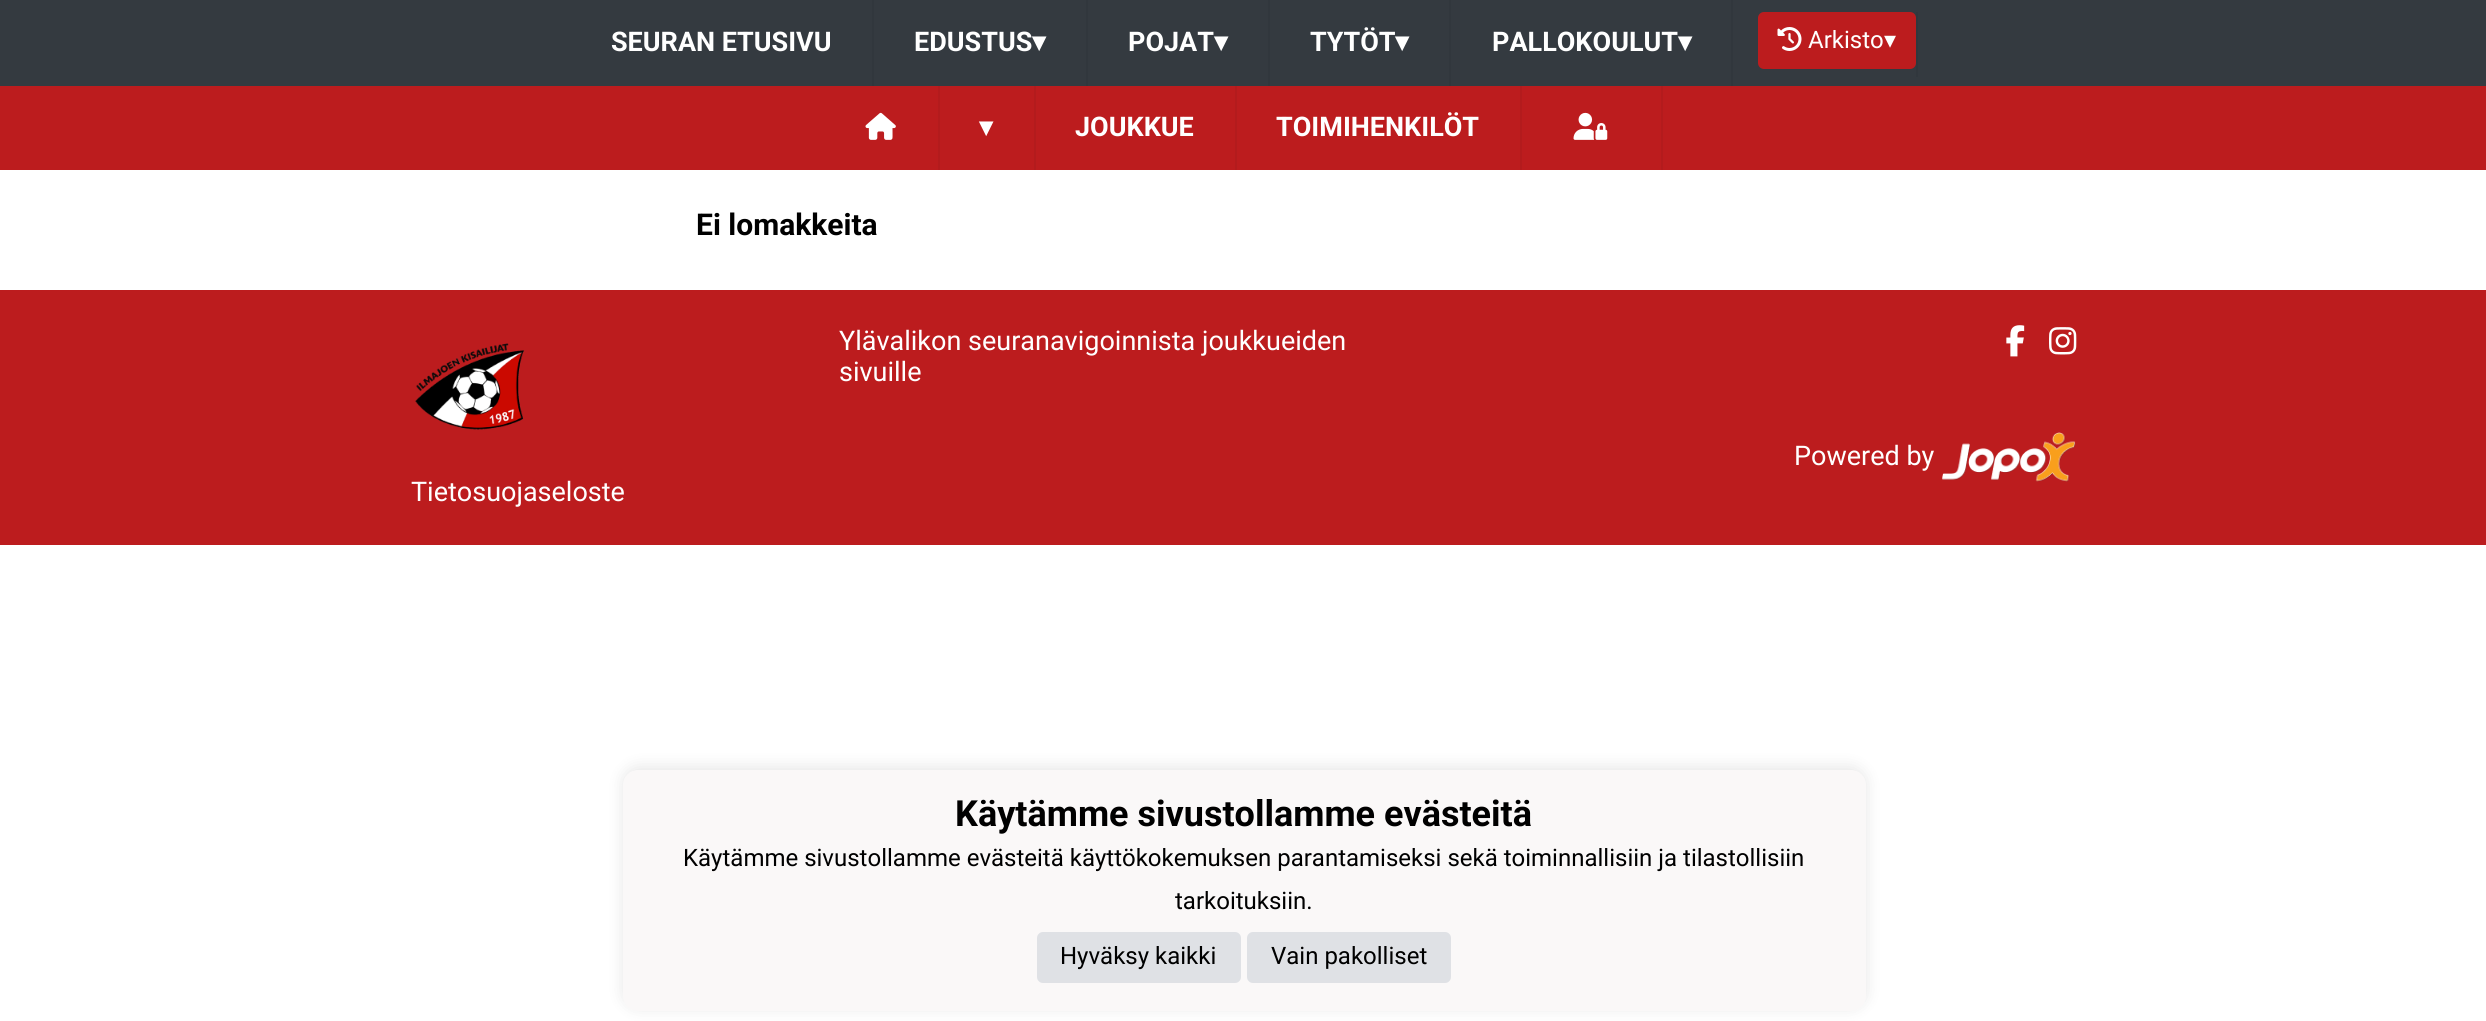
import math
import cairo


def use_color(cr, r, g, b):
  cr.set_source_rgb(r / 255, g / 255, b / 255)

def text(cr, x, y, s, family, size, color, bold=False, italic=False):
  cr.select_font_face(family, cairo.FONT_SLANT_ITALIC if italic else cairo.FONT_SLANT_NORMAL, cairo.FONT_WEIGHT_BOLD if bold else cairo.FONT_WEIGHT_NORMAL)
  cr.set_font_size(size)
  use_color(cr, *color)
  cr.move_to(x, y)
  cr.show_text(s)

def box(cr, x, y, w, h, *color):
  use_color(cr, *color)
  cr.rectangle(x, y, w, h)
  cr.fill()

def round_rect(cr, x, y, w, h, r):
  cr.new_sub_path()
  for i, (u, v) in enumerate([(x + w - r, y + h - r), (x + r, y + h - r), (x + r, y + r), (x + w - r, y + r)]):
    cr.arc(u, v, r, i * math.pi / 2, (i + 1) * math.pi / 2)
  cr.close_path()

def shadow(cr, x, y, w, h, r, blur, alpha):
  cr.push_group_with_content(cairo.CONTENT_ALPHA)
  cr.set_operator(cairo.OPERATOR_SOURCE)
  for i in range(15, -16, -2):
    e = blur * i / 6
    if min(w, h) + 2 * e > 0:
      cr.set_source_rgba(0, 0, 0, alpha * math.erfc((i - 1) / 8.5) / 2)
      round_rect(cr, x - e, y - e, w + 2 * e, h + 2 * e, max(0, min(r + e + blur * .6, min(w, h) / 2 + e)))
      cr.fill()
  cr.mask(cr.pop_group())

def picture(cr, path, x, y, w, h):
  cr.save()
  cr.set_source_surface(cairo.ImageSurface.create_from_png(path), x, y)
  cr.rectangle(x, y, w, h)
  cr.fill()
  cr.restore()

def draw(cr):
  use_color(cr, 255, 255, 255)
  cr.paint()
  box(cr, 0, 0, 2486, 86, 52, 58, 64)
  box(cr, 872, 0, 2, 86, 49, 55, 61)
  box(cr, 1086, 0, 2, 86, 49, 55, 61)
  box(cr, 1268, 0, 2, 86, 49, 55, 61)
  box(cr, 1449, 0, 2, 86, 49, 55, 61)
  box(cr, 1731, 0, 2, 86, 49, 55, 61)
  box(cr, 1916, 12, 2, 65, 49, 55, 61)
  use_color(cr, 188, 28, 30)
  round_rect(cr, 1758, 12, 158, 57, 6)
  cr.fill()
  picture(cr, "img_01.png", 1777, 27, 25, 24)
  box(cr, 0, 86, 2486, 84, 188, 28, 30)
  box(cr, 938, 86, 2, 84, 179, 27, 29)
  picture(cr, "img_02.png", 865, 112, 31, 28)
  box(cr, 1034, 86, 2, 84, 179, 27, 29)
  box(cr, 1235, 86, 2, 84, 179, 27, 29)
  box(cr, 1520, 86, 2, 84, 179, 27, 29)
  box(cr, 1661, 86, 2, 84, 179, 27, 29)
  picture(cr, "img_03.png", 1573, 112, 35, 28)
  box(cr, 0, 290, 2486, 255, 188, 28, 30)
  picture(cr, "img_04.png", 2006, 325, 19, 32)
  picture(cr, "img_05.png", 2049, 327, 28, 28)
  picture(cr, "img_06.png", 1942, 432, 134, 50)
  picture(cr, "img_07.png", 415, 343, 110, 87)
  use_color(cr, 0, 0, 0)
  shadow(cr, 623, 767, 1243, 241, 15, 7.5, 0.1)
  use_color(cr, 250, 248, 248)
  round_rect(cr, 623, 770, 1243, 241, 15)
  cr.fill()
  use_color(cr, 223, 225, 229)
  round_rect(cr, 1037, 932, 204, 51, 6)
  cr.fill()
  round_rect(cr, 1247, 932, 204, 51, 6)
  cr.fill()
  text(cr, 611, 51, "SEURAN ETUSIVU", "Roboto", 27, (255, 255, 255), bold=True)
  text(cr, 914, 51, "EDUSTUS", "Roboto", 27, (255, 255, 255), bold=True)
  text(cr, 1032, 51, "▾", "DejaVu Sans", 27, (255, 255, 255), bold=True)
  text(cr, 1128, 51, "POJAT", "Roboto", 27, (255, 255, 255), bold=True)
  text(cr, 1214, 51, "▾", "DejaVu Sans", 27, (255, 255, 255), bold=True)
  text(cr, 1310, 51, "TYTÖT", "Roboto", 27, (255, 255, 255), bold=True)
  text(cr, 1395, 51, "▾", "DejaVu Sans", 27, (255, 255, 255), bold=True)
  text(cr, 1492, 51, "PALLOKOULUT", "Roboto", 27, (255, 255, 255), bold=True)
  text(cr, 1678, 51, "▾", "DejaVu Sans", 27, (255, 255, 255), bold=True)
  text(cr, 1808, 48, "Arkisto", "Roboto", 24, (255, 255, 255))
  text(cr, 1884, 48, "▾", "DejaVu Sans", 24, (255, 255, 255))
  text(cr, 979, 136, "▾", "DejaVu Sans", 27, (255, 255, 255), bold=True)
  text(cr, 1075, 136, "JOUKKUE", "Roboto", 27, (255, 255, 255), bold=True)
  text(cr, 1276, 136, "TOIMIHENKILÖT", "Roboto", 27, (255, 255, 255), bold=True)
  text(cr, 696, 235, "Ei lomakkeita", "Roboto", 30, (0, 0, 0), bold=True)
  text(cr, 839, 350, "Ylävalikon seuranavigoinnista joukkueiden", "Roboto", 27, (255, 255, 255))
  text(cr, 839, 381, "sivuille", "Roboto", 27, (255, 255, 255))
  text(cr, 1794, 465, "Powered by", "Roboto", 27, (255, 255, 255))
  text(cr, 411, 501, "Tietosuojaseloste", "Roboto", 27, (255, 255, 255))
  text(cr, 955, 826, "Käytämme sivustollamme evästeitä", "Roboto", 36, (0, 0, 0), bold=True)
  text(cr, 683, 866, "Käytämme sivustollamme evästeitä käyttökokemuksen parantamiseksi sekä toiminnallisiin ja tilastollisiin", "Roboto", 24, (0, 0, 0))
  text(cr, 1175, 909, "tarkoituksiin.", "Roboto", 24, (0, 0, 0))
  text(cr, 1060, 964, "Hyväksy kaikki", "Roboto", 24, (0, 0, 0))
  text(cr, 1271, 964, "Vain pakolliset", "Roboto", 24, (0, 0, 0))


surface = cairo.ImageSurface(cairo.FORMAT_RGB24, 2486, 1021)
cr = cairo.Context(surface)
options = cairo.FontOptions()
options.set_hint_metrics(cairo.HINT_METRICS_OFF)
options.set_hint_style(cairo.HINT_STYLE_NONE)
cr.set_font_options(options)
cr.set_miter_limit(4)
draw(cr)
surface.write_to_png("out.png")
